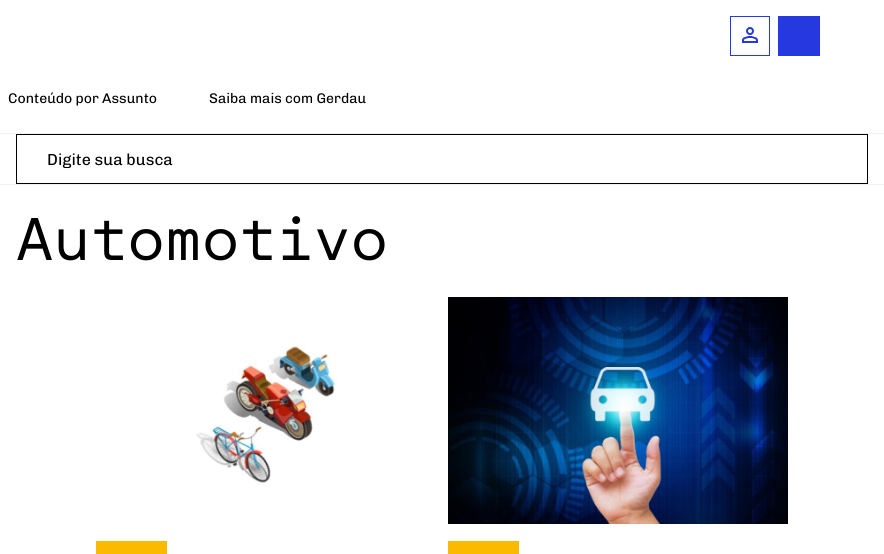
import math
import cairo


def use_color(cr, r, g, b):
  cr.set_source_rgb(r / 255, g / 255, b / 255)

def text(cr, x, y, s, family, size, color, bold=False, italic=False):
  cr.select_font_face(family, cairo.FONT_SLANT_ITALIC if italic else cairo.FONT_SLANT_NORMAL, cairo.FONT_WEIGHT_BOLD if bold else cairo.FONT_WEIGHT_NORMAL)
  cr.set_font_size(size)
  use_color(cr, *color)
  cr.move_to(x, y)
  cr.show_text(s)

def box(cr, x, y, w, h, *color):
  use_color(cr, *color)
  cr.rectangle(x, y, w, h)
  cr.fill()

def picture(cr, path, x, y, w, h):
  cr.save()
  cr.set_source_surface(cairo.ImageSurface.create_from_png(path), x, y)
  cr.rectangle(x, y, w, h)
  cr.fill()
  cr.restore()

def draw(cr):
  use_color(cr, 255, 255, 255)
  cr.paint()
  box(cr, 0, 184, 884, 1, 242, 242, 242)
  cr.rectangle(730.5, 16.5, 39, 39)
  use_color(cr, 38, 56, 224)
  cr.set_line_width(1)
  cr.stroke()
  picture(cr, "img_01.png", 742, 27, 16, 16)
  box(cr, 778, 16, 42, 40, 38, 56, 224)
  box(cr, 0, 133, 884, 1, 242, 242, 242)
  cr.rectangle(16.5, 134.5, 851, 49)
  use_color(cr, 0, 0, 0)
  cr.stroke()
  picture(cr, "img_02.png", 196, 346, 141, 137)
  box(cr, 96, 541, 71, 13, 251, 186, 0)
  picture(cr, "img_03.png", 448, 297, 340, 227)
  box(cr, 448, 541, 71, 13, 251, 186, 0)
  text(cr, 8, 103, "Conteúdo por Assunto", "Chivo Medium", 14, (0, 0, 0))
  text(cr, 209, 103, "Saiba mais com Gerdau", "Chivo Medium", 14, (0, 0, 0))
  text(cr, 47, 165, "Digite sua busca", "Chivo Medium", 16, (0, 0, 0))
  text(cr, 16, 260, "Automotivo", "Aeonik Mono", 60, (0, 0, 0))


surface = cairo.ImageSurface(cairo.FORMAT_RGB24, 884, 554)
cr = cairo.Context(surface)
options = cairo.FontOptions()
options.set_hint_metrics(cairo.HINT_METRICS_OFF)
options.set_hint_style(cairo.HINT_STYLE_NONE)
cr.set_font_options(options)
cr.set_miter_limit(4)
draw(cr)
surface.write_to_png("out.png")
